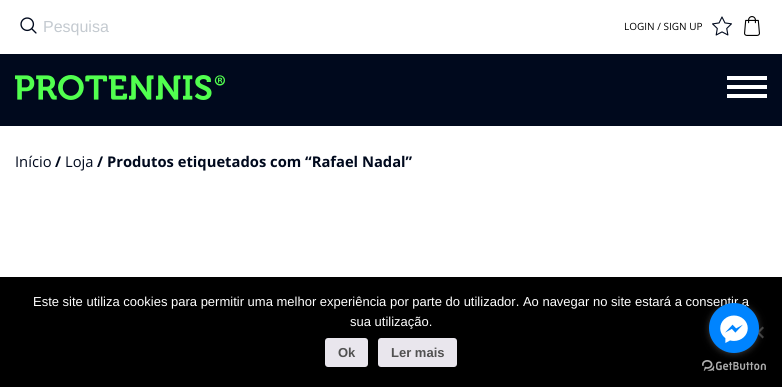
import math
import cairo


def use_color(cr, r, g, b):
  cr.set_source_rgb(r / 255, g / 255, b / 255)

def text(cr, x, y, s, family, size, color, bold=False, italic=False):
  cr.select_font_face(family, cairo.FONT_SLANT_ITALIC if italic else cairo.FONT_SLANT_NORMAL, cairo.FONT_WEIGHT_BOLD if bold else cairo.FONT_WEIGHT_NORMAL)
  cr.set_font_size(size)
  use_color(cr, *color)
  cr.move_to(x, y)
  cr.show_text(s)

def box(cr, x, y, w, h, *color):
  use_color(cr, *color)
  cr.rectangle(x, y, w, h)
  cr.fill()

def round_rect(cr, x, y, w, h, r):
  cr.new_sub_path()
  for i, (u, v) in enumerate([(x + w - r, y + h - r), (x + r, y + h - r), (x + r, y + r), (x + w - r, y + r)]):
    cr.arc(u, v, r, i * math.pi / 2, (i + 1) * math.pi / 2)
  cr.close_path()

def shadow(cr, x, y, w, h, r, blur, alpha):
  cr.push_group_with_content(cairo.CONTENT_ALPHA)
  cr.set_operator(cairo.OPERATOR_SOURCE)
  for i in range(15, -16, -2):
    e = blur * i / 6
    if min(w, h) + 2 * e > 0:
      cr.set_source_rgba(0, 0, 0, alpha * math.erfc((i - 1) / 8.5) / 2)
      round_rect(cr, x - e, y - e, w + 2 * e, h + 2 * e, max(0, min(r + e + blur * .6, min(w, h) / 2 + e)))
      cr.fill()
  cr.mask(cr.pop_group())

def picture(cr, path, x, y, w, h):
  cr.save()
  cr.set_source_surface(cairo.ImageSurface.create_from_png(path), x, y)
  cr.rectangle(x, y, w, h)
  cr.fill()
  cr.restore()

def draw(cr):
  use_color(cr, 255, 255, 255)
  cr.paint()
  picture(cr, "img_01.png", 20, 17, 17, 17)
  picture(cr, "img_02.png", 712, 16, 20, 20)
  picture(cr, "img_03.png", 744, 16, 16, 20)
  box(cr, 0, 54, 782, 72, 0, 9, 29)
  picture(cr, "img_04.png", 15, 75, 210, 25)
  box(cr, 727, 76, 40, 4, 255, 255, 255)
  box(cr, 727, 85, 40, 4, 255, 255, 255)
  box(cr, 727, 94, 40, 4, 255, 255, 255)
  box(cr, 0, 277, 782, 110, 0, 0, 0)
  picture(cr, "img_06.png", 702, 360, 64, 11)
  use_color(cr, 64, 64, 64)
  cr.new_path()
  cr.move_to(762.5, 326.5)
  cr.line_to(764, 328)
  cr.line_to(753.5, 338.5)
  cr.line_to(752, 337)
  cr.close_path()
  cr.fill()
  cr.new_path()
  cr.move_to(752, 328)
  cr.line_to(753.5, 326.5)
  cr.line_to(764, 337)
  cr.line_to(762.5, 338.5)
  cr.close_path()
  cr.fill()
  use_color(cr, 136, 136, 136)
  shadow(cr, 709, 304, 50, 50, 25, 3.5, 0.4)
  use_color(cr, 233, 230, 237)
  round_rect(cr, 325, 338, 43, 29, 3)
  cr.fill()
  round_rect(cr, 378, 338, 79, 29, 3)
  cr.fill()
  text(cr, 43, 32, "Pesquisa", "Liberation Sans", 16, (196, 202, 208))
  text(cr, 624, 30, "LOGIN / SIGN UP", "Open Sans", 10, (0, 0, 0))
  text(cr, 15, 167, "Início", "Open Sans", 14.75, (0, 9, 29))
  text(cr, 55, 167, "/", "Open Sans", 14.75, (0, 9, 29), bold=True)
  text(cr, 65, 167, "Loja", "Open Sans", 14.75, (0, 9, 29))
  text(cr, 97, 167, "/ Produtos etiquetados com “Rafael Nadal”", "Open Sans", 14.75, (0, 9, 29), bold=True)
  text(cr, 33, 306, "Este site utiliza cookies para permitir uma melhor experiência por parte do utilizador. Ao navegar no site estará a consentir a", "Liberation Sans", 13, (255, 255, 255))
  use_color(cr, 0, 132, 255)
  cr.new_path()
  cr.arc(734, 328, 25, 0, 2 * math.pi)
  cr.fill()
  picture(cr, "img_05.png", 720, 315, 28, 28)
  text(cr, 350, 326, "sua utilização.", "Liberation Sans", 13, (255, 255, 255))
  text(cr, 338, 357, "Ok", "Liberation Sans", 13, (81, 81, 81), bold=True)
  text(cr, 391, 357, "Ler mais", "Liberation Sans", 13, (81, 81, 81), bold=True)


surface = cairo.ImageSurface(cairo.FORMAT_RGB24, 782, 387)
cr = cairo.Context(surface)
options = cairo.FontOptions()
options.set_hint_metrics(cairo.HINT_METRICS_OFF)
options.set_hint_style(cairo.HINT_STYLE_NONE)
cr.set_font_options(options)
cr.set_miter_limit(4)
draw(cr)
surface.write_to_png("out.png")
